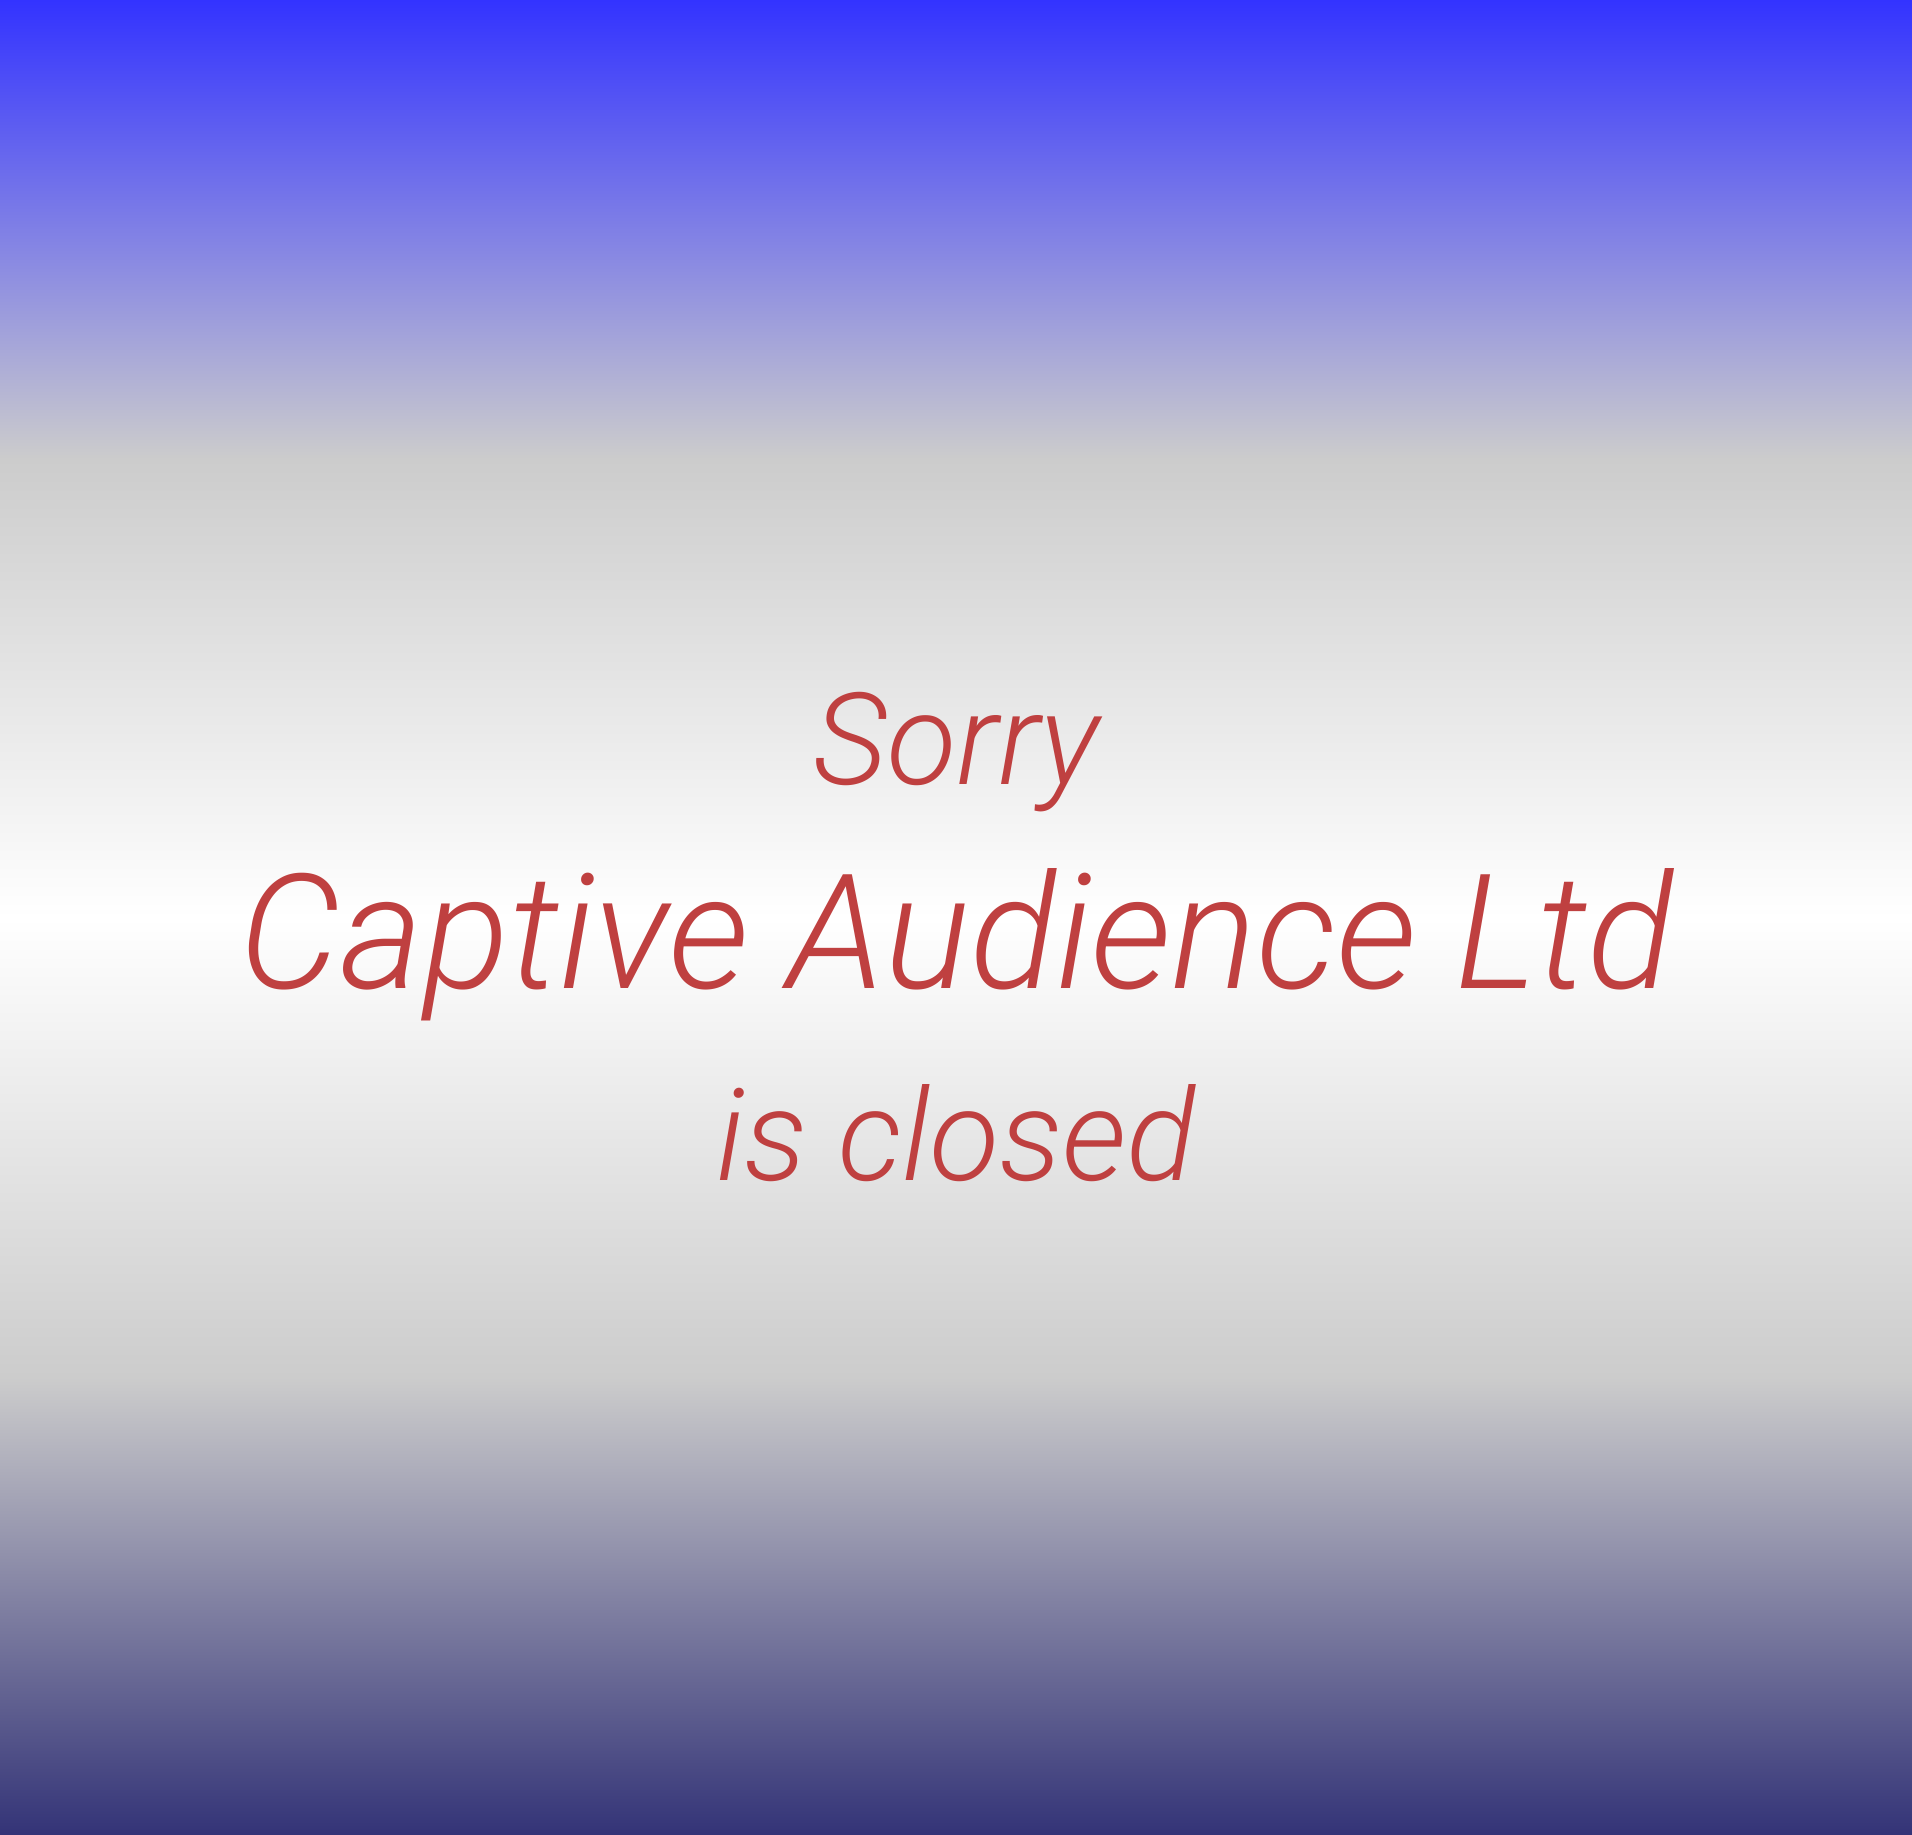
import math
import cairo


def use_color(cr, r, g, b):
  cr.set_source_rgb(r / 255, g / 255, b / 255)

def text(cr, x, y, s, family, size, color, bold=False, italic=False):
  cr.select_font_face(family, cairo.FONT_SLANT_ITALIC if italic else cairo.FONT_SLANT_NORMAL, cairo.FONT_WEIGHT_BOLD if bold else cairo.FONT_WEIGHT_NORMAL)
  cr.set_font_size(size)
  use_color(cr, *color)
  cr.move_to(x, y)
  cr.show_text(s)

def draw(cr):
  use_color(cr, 255, 255, 255)
  cr.paint()
  gradient = cairo.LinearGradient(956, 0, 956, 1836)
  gradient.add_color_stop_rgba(0, 0.2, 0.2, 1, 1)
  gradient.add_color_stop_rgba(0.25, 0.8, 0.8, 0.8, 1)
  gradient.add_color_stop_rgba(0.5, 1, 1, 1, 1)
  gradient.add_color_stop_rgba(0.75, 0.8, 0.8, 0.8, 1)
  gradient.add_color_stop_rgba(1, 0.2, 0.2, 0.467, 1)
  cr.set_source(gradient)
  cr.rectangle(0, 0, 1912, 1835)
  cr.fill()
  text(cr, 813, 784, "Sorry", "Roboto Light", 128, (191, 64, 64), italic=True)
  text(cr, 239, 988, "Captive Audience Ltd", "Roboto Light", 160, (191, 64, 64), italic=True)
  text(cr, 716, 1180, "is closed", "Roboto Light", 128, (191, 64, 64), italic=True)


surface = cairo.ImageSurface(cairo.FORMAT_RGB24, 1912, 1835)
cr = cairo.Context(surface)
options = cairo.FontOptions()
options.set_hint_metrics(cairo.HINT_METRICS_OFF)
options.set_hint_style(cairo.HINT_STYLE_NONE)
cr.set_font_options(options)
cr.set_miter_limit(4)
draw(cr)
surface.write_to_png("out.png")
